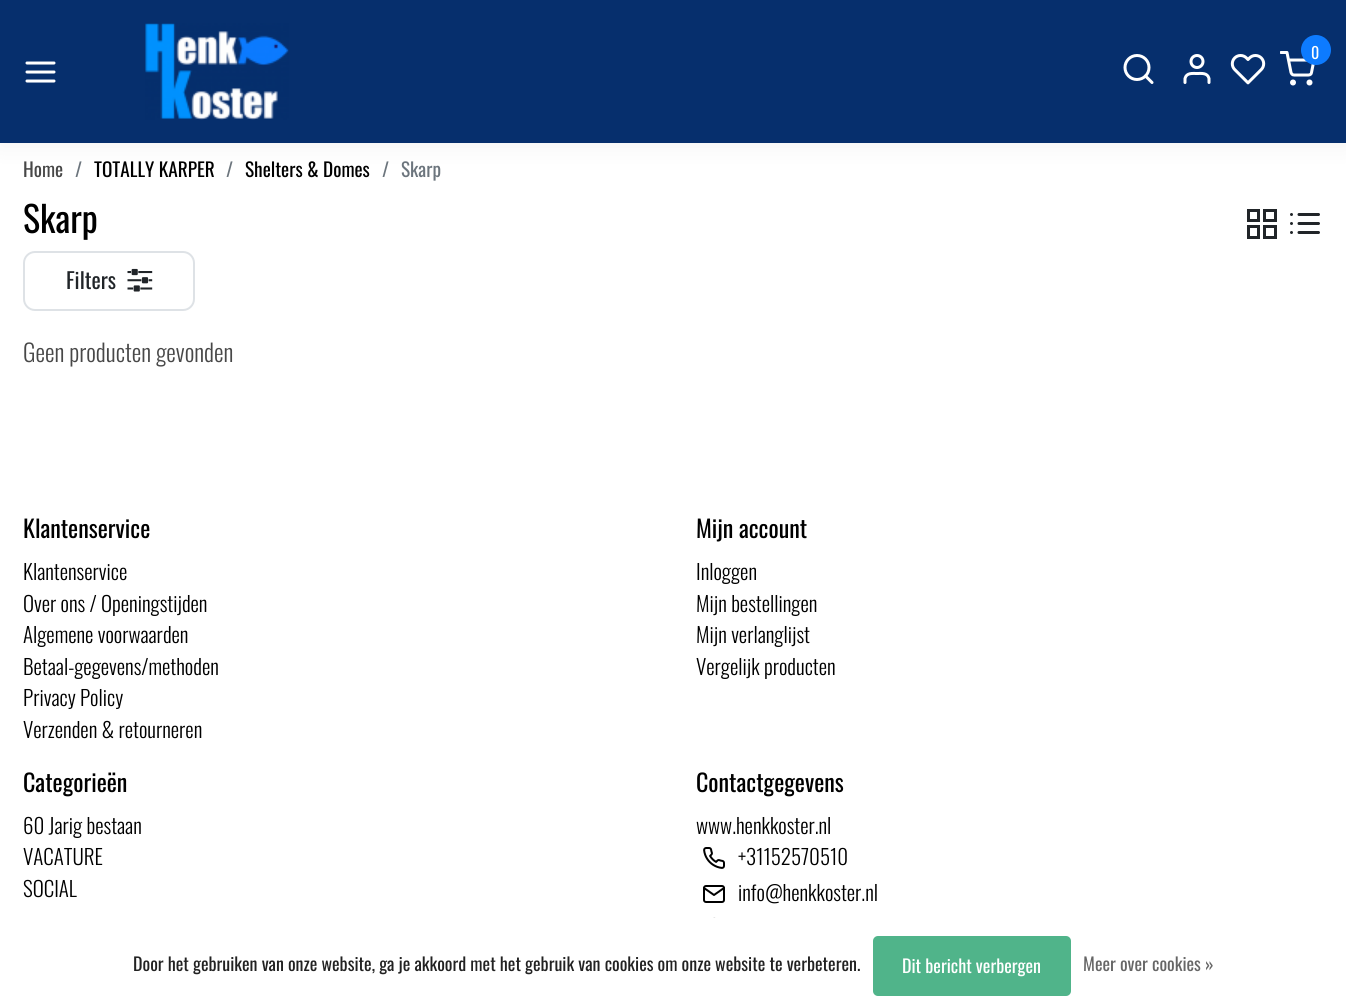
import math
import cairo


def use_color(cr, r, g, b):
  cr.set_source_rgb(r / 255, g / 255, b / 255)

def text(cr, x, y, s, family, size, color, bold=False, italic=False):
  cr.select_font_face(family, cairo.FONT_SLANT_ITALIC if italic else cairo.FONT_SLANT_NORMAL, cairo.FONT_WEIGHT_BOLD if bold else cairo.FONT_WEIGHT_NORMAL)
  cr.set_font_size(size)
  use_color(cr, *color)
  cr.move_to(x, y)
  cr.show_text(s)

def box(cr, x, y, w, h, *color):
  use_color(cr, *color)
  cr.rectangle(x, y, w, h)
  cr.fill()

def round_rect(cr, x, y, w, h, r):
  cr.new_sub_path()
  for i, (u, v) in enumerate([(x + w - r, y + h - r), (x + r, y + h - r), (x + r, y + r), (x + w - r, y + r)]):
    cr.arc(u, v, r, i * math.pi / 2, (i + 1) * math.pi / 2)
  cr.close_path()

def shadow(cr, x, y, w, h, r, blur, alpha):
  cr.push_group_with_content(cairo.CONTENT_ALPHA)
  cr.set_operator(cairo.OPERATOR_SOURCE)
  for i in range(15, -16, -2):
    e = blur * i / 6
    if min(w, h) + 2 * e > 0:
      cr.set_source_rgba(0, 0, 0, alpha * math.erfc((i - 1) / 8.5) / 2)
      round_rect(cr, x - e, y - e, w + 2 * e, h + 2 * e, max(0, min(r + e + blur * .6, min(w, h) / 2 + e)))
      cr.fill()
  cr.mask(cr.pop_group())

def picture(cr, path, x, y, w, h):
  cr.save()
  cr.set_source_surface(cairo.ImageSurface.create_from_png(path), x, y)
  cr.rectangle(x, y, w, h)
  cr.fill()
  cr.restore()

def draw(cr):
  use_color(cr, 255, 255, 255)
  cr.paint()
  use_color(cr, 0, 0, 0)
  shadow(cr, 0, 3, 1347, 143, 0, 12, 0.05)
  box(cr, 0, 0, 1346, 143, 6, 47, 109)
  cr.new_path()
  cr.move_to(27, 72)
  cr.line_to(54, 72)
  cr.move_to(27, 63)
  cr.line_to(54, 63)
  cr.move_to(27, 81)
  cr.line_to(54, 81)
  use_color(cr, 255, 255, 255)
  cr.set_line_width(3)
  cr.set_line_cap(cairo.LINE_CAP_ROUND)
  cr.set_line_join(cairo.LINE_JOIN_ROUND)
  cr.stroke()
  picture(cr, "img_01.png", 145, 23, 144, 97)
  cr.save()
  cr.rectangle(1280, 51, 36, 36)
  cr.clip()
  cr.new_path()
  cr.move_to(1281, 52.5)
  cr.line_to(1287, 52.5)
  cr.line_to(1291, 72.5)
  cr.curve_to(1291.5, 74, 1292.5, 75, 1294, 75)
  cr.line_to(1308.5, 75)
  cr.curve_to(1310, 75, 1311.5, 74, 1311.5, 72.5)
  cr.line_to(1314, 60)
  cr.line_to(1288.5, 60)
  cr.stroke()
  cr.restore()
  use_color(cr, 13, 123, 255)
  cr.arc(1316, 50, 15, 0, 2 * math.pi)
  cr.fill()
  cr.arc(1293, 82.5, 1.5, 0, 2 * math.pi)
  use_color(cr, 255, 255, 255)
  cr.set_line_cap(cairo.LINE_CAP_BUTT)
  cr.set_line_join(cairo.LINE_JOIN_MITER)
  cr.stroke()
  cr.arc(1309.5, 82.5, 1.5, 0, 2 * math.pi)
  cr.stroke()
  cr.arc(1137, 67.5, 12, 0, 2 * math.pi)
  cr.stroke()
  cr.new_path()
  cr.move_to(1152, 82.5)
  cr.line_to(1145.5, 76)
  cr.set_line_cap(cairo.LINE_CAP_ROUND)
  cr.set_line_join(cairo.LINE_JOIN_ROUND)
  cr.stroke()
  cr.new_path()
  cr.move_to(1209, 82.5)
  cr.line_to(1209, 78.5)
  cr.curve_to(1207.5, 72.5, 1201.5, 73.5, 1197, 73.5)
  cr.curve_to(1192.5, 73.5, 1186.5, 72.5, 1185, 78.5)
  cr.line_to(1185, 82.5)
  cr.stroke()
  cr.arc(1197, 61.5, 6, 0, 2 * math.pi)
  cr.set_line_cap(cairo.LINE_CAP_BUTT)
  cr.set_line_join(cairo.LINE_JOIN_MITER)
  cr.stroke()
  picture(cr, "img_02.png", 1230, 54, 36, 31)
  cr.rectangle(1248.5, 210.5, 10, 10)
  use_color(cr, 33, 37, 41)
  cr.stroke()
  cr.rectangle(1264.5, 210.5, 11, 10)
  cr.stroke()
  cr.rectangle(1264.5, 226.5, 11, 11)
  cr.stroke()
  cr.rectangle(1248.5, 226.5, 10, 11)
  cr.stroke()
  picture(cr, "img_03.png", 1290, 213, 30, 21)
  round_rect(cr, 24, 252, 170, 58, 11)
  use_color(cr, 222, 226, 230)
  cr.set_line_width(2)
  cr.stroke()
  picture(cr, "img_04.png", 127, 268, 26, 24)
  picture(cr, "img_05.png", 703, 847, 22, 22)
  picture(cr, "img_06.png", 703, 885, 22, 18)
  cr.new_path()
  cr.move_to(723, 928)
  cr.curve_to(723, 935, 714, 941, 714, 941)
  cr.curve_to(695, 928.5, 711, 912.5, 720.5, 921.5)
  cr.curve_to(722, 923.5, 723, 925.5, 723, 928)
  cr.close_path()
  use_color(cr, 0, 0, 0)
  cr.set_line_cap(cairo.LINE_CAP_ROUND)
  cr.set_line_join(cairo.LINE_JOIN_ROUND)
  cr.stroke()
  box(cr, 704, 918, 20, 24, 255, 255, 255)
  use_color(cr, 80, 180, 138)
  round_rect(cr, 873, 936, 198, 60, 5)
  cr.fill()
  text(cr, 1311, 59, "0", "Oswald", 16, (255, 255, 255))
  text(cr, 23, 177, "Home", "Oswald", 19.25, (72, 72, 72))
  text(cr, 75, 177, "/", "Oswald", 19.25, (108, 117, 125))
  text(cr, 94, 177, "TOTALLY KARPER", "Oswald", 19.25, (0, 0, 0))
  text(cr, 226, 177, "/", "Oswald", 19.25, (108, 117, 125))
  text(cr, 245, 177, "Shelters & Domes", "Oswald", 19.25, (0, 0, 0))
  text(cr, 382, 177, "/", "Oswald", 19.25, (108, 117, 125))
  text(cr, 401, 177, "Skarp", "Oswald", 19.25, (108, 117, 125))
  text(cr, 23, 233, "Skarp", "Oswald", 36, (0, 0, 0))
  text(cr, 66, 289, "Filters", "Oswald", 22, (33, 37, 41))
  text(cr, 23, 362, "Geen producten gevonden", "Oswald Light", 24, (72, 72, 72))
  text(cr, 23, 538, "Klantenservice", "Oswald", 24, (0, 0, 0))
  text(cr, 23, 580, "Klantenservice", "Oswald Light", 21, (0, 0, 0))
  text(cr, 23, 612, "Over ons / Openingstijden", "Oswald Light", 21, (0, 0, 0))
  text(cr, 23, 643, "Algemene voorwaarden", "Oswald Light", 21, (0, 0, 0))
  text(cr, 23, 675, "Betaal-gegevens/methoden", "Oswald Light", 21, (0, 0, 0))
  text(cr, 23, 706, "Privacy Policy", "Oswald Light", 21, (0, 0, 0))
  text(cr, 23, 738, "Verzenden & retourneren", "Oswald Light", 21, (0, 0, 0))
  text(cr, 696, 538, "Mijn account", "Oswald", 24, (0, 0, 0))
  text(cr, 696, 580, "Inloggen", "Oswald Light", 21, (0, 0, 0))
  text(cr, 696, 612, "Mijn bestellingen", "Oswald Light", 21, (0, 0, 0))
  text(cr, 696, 643, "Mijn verlanglijst", "Oswald Light", 21, (0, 0, 0))
  text(cr, 696, 675, "Vergelijk producten", "Oswald Light", 21, (0, 0, 0))
  text(cr, 23, 792, "Categorieën", "Oswald", 24, (0, 0, 0))
  text(cr, 23, 834, "60 Jarig bestaan", "Oswald Light", 21, (0, 0, 0))
  text(cr, 23, 865, "VACATURE", "Oswald Light", 21, (0, 0, 0))
  text(cr, 23, 897, "SOCIAL", "Oswald Light", 21, (0, 0, 0))
  text(cr, 696, 792, "Contactgegevens", "Oswald", 24, (0, 0, 0))
  text(cr, 696, 834, "www.henkkoster.nl", "Oswald Light", 21, (0, 0, 0))
  text(cr, 738, 865, "+31152570510", "Oswald Light", 21, (0, 0, 0))
  text(cr, 738, 901, "info@henkkoster.nl", "Oswald Light", 21, (0, 0, 0))
  text(cr, 133, 971, "Door het gebruiken van onze website, ga je akkoord met het gebruik van cookies om onze website te verbeteren.", "Oswald", 18, (34, 34, 34))
  text(cr, 902, 973, "Dit bericht verbergen", "Oswald", 18, (255, 255, 255))
  text(cr, 1083, 971, "Meer over cookies »", "Oswald", 18, (102, 102, 102))


surface = cairo.ImageSurface(cairo.FORMAT_RGB24, 1346, 1008)
cr = cairo.Context(surface)
options = cairo.FontOptions()
options.set_hint_metrics(cairo.HINT_METRICS_OFF)
options.set_hint_style(cairo.HINT_STYLE_NONE)
cr.set_font_options(options)
cr.set_miter_limit(4)
draw(cr)
surface.write_to_png("out.png")
